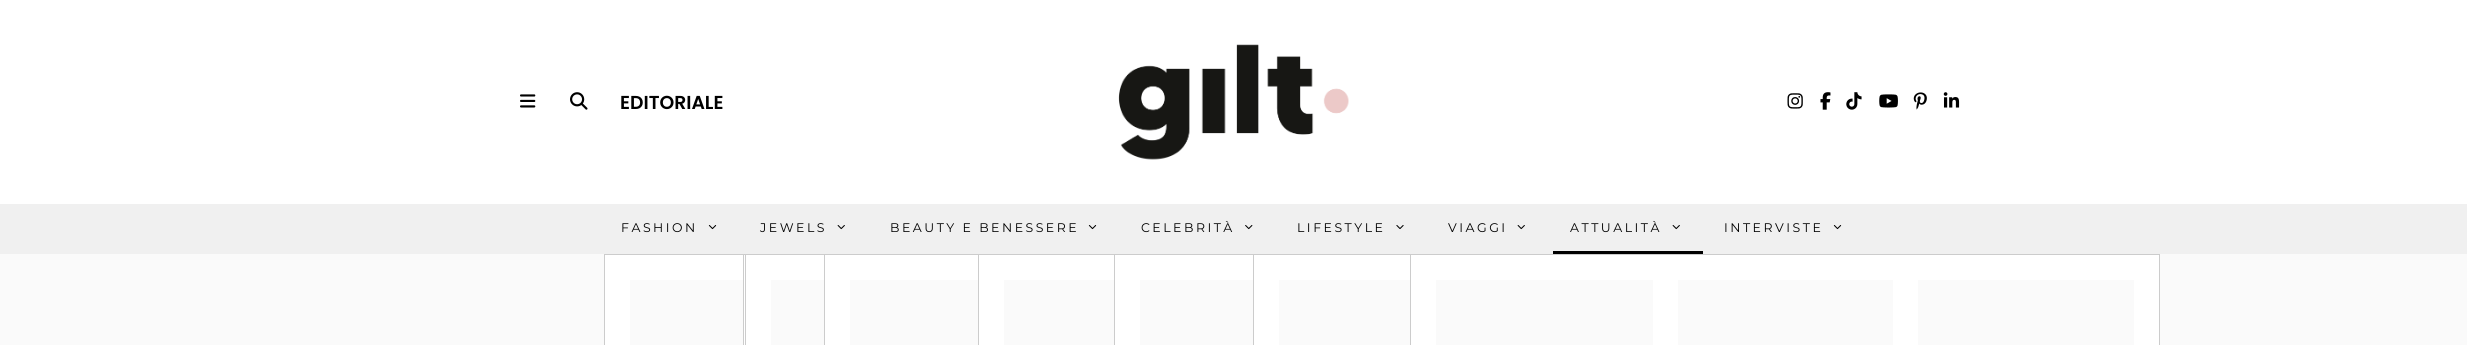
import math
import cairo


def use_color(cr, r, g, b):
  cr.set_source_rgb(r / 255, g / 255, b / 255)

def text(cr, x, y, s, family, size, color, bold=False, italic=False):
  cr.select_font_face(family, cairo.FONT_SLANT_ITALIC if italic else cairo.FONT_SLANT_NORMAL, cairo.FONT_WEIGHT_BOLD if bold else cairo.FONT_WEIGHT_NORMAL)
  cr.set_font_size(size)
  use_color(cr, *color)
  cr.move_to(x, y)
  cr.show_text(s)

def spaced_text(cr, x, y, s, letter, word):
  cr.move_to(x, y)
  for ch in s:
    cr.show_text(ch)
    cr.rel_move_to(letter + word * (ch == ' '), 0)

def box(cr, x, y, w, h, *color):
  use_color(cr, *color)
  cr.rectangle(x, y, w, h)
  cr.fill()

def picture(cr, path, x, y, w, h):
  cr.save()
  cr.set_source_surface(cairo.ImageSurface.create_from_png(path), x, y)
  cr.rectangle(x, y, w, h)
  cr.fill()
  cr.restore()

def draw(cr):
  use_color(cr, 255, 255, 255)
  cr.paint()
  picture(cr, "img_01.png", 520, 94, 16, 14)
  picture(cr, "img_02.png", 570, 92, 18, 18)
  picture(cr, "img_03.png", 1118, 44, 231, 116)
  picture(cr, "img_04.png", 1787, 93, 16, 16)
  picture(cr, "img_05.png", 1820, 92, 11, 18)
  picture(cr, "img_06.png", 1846, 92, 16, 18)
  picture(cr, "img_07.png", 1879, 94, 19, 14)
  picture(cr, "img_08.png", 1913, 92, 14, 18)
  picture(cr, "img_09.png", 1943, 92, 17, 16)
  box(cr, 0, 204, 2467, 50, 240, 240, 240)
  picture(cr, "img_10.png", 708, 225, 9, 5)
  box(cr, 0, 254, 2467, 91, 250, 250, 250)
  box(cr, 605, 255, 138, 90, 255, 255, 255)
  cr.rectangle(604.5, 254.5, 749, 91)
  use_color(cr, 204, 204, 204)
  cr.set_line_width(1)
  cr.stroke()
  box(cr, 630, 280, 113, 65, 250, 250, 250)
  picture(cr, "img_11.png", 837, 225, 8, 5)
  box(cr, 744, 255, 1, 90, 255, 255, 255)
  cr.rectangle(743.5, 254.5, 749, 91)
  use_color(cr, 204, 204, 204)
  cr.stroke()
  picture(cr, "img_10.png", 1088, 225, 9, 5)
  box(cr, 746, 255, 78, 90, 255, 255, 255)
  cr.rectangle(745.5, 254.5, 749, 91)
  use_color(cr, 204, 204, 204)
  cr.stroke()
  box(cr, 771, 280, 53, 65, 250, 250, 250)
  picture(cr, "img_12.png", 1245, 225, 8, 5)
  box(cr, 825, 255, 153, 90, 255, 255, 255)
  cr.rectangle(824.5, 254.5, 749, 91)
  use_color(cr, 204, 204, 204)
  cr.stroke()
  box(cr, 850, 280, 128, 65, 250, 250, 250)
  picture(cr, "img_13.png", 1396, 225, 8, 4)
  box(cr, 979, 255, 135, 90, 255, 255, 255)
  cr.rectangle(978.5, 254.5, 749, 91)
  use_color(cr, 204, 204, 204)
  cr.stroke()
  box(cr, 1004, 280, 110, 65, 250, 250, 250)
  picture(cr, "img_11.png", 1517, 225, 8, 5)
  box(cr, 1115, 255, 138, 90, 255, 255, 255)
  cr.rectangle(1114.5, 254.5, 749, 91)
  use_color(cr, 204, 204, 204)
  cr.stroke()
  box(cr, 1140, 280, 113, 65, 250, 250, 250)
  picture(cr, "img_11.png", 1672, 225, 8, 5)
  box(cr, 1553, 251, 150, 3, 0, 0, 0)
  box(cr, 1254, 255, 156, 90, 255, 255, 255)
  cr.rectangle(1253.5, 254.5, 749, 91)
  use_color(cr, 204, 204, 204)
  cr.stroke()
  box(cr, 1279, 280, 131, 65, 250, 250, 250)
  picture(cr, "img_10.png", 1833, 225, 9, 5)
  use_color(cr, 255, 255, 255)
  cr.rectangle(1410.5, 254.5, 749, 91)
  cr.fill_preserve()
  use_color(cr, 204, 204, 204)
  cr.stroke()
  box(cr, 1436, 280, 217, 65, 250, 250, 250)
  box(cr, 1678, 280, 215, 65, 250, 250, 250)
  box(cr, 1918, 280, 216, 65, 250, 250, 250)
  text(cr, 620, 109, "EDITORIALE", "Poppins SemiBold", 18.75, (0, 0, 0))
  cr.select_font_face("Montserrat Thin")
  cr.set_font_size(12.5)
  spaced_text(cr, 621, 232, "FASHION", 2.5, 0)
  spaced_text(cr, 760, 232, "JEWELS", 2.5, 0)
  spaced_text(cr, 890, 232, "BEAUTY E BENESSERE", 2.5, 0)
  spaced_text(cr, 1141, 232, "CELEBRITÀ", 2.5, 0)
  spaced_text(cr, 1297, 232, "LIFESTYLE", 2.5, 0)
  spaced_text(cr, 1448, 232, "VIAGGI", 2.5, 0)
  spaced_text(cr, 1570, 232, "ATTUALITÀ", 2.5, 0)
  spaced_text(cr, 1724, 232, "INTERVISTE", 2.5, 0)


surface = cairo.ImageSurface(cairo.FORMAT_RGB24, 2467, 345)
cr = cairo.Context(surface)
options = cairo.FontOptions()
options.set_hint_metrics(cairo.HINT_METRICS_OFF)
options.set_hint_style(cairo.HINT_STYLE_NONE)
cr.set_font_options(options)
cr.set_miter_limit(4)
draw(cr)
surface.write_to_png("out.png")
